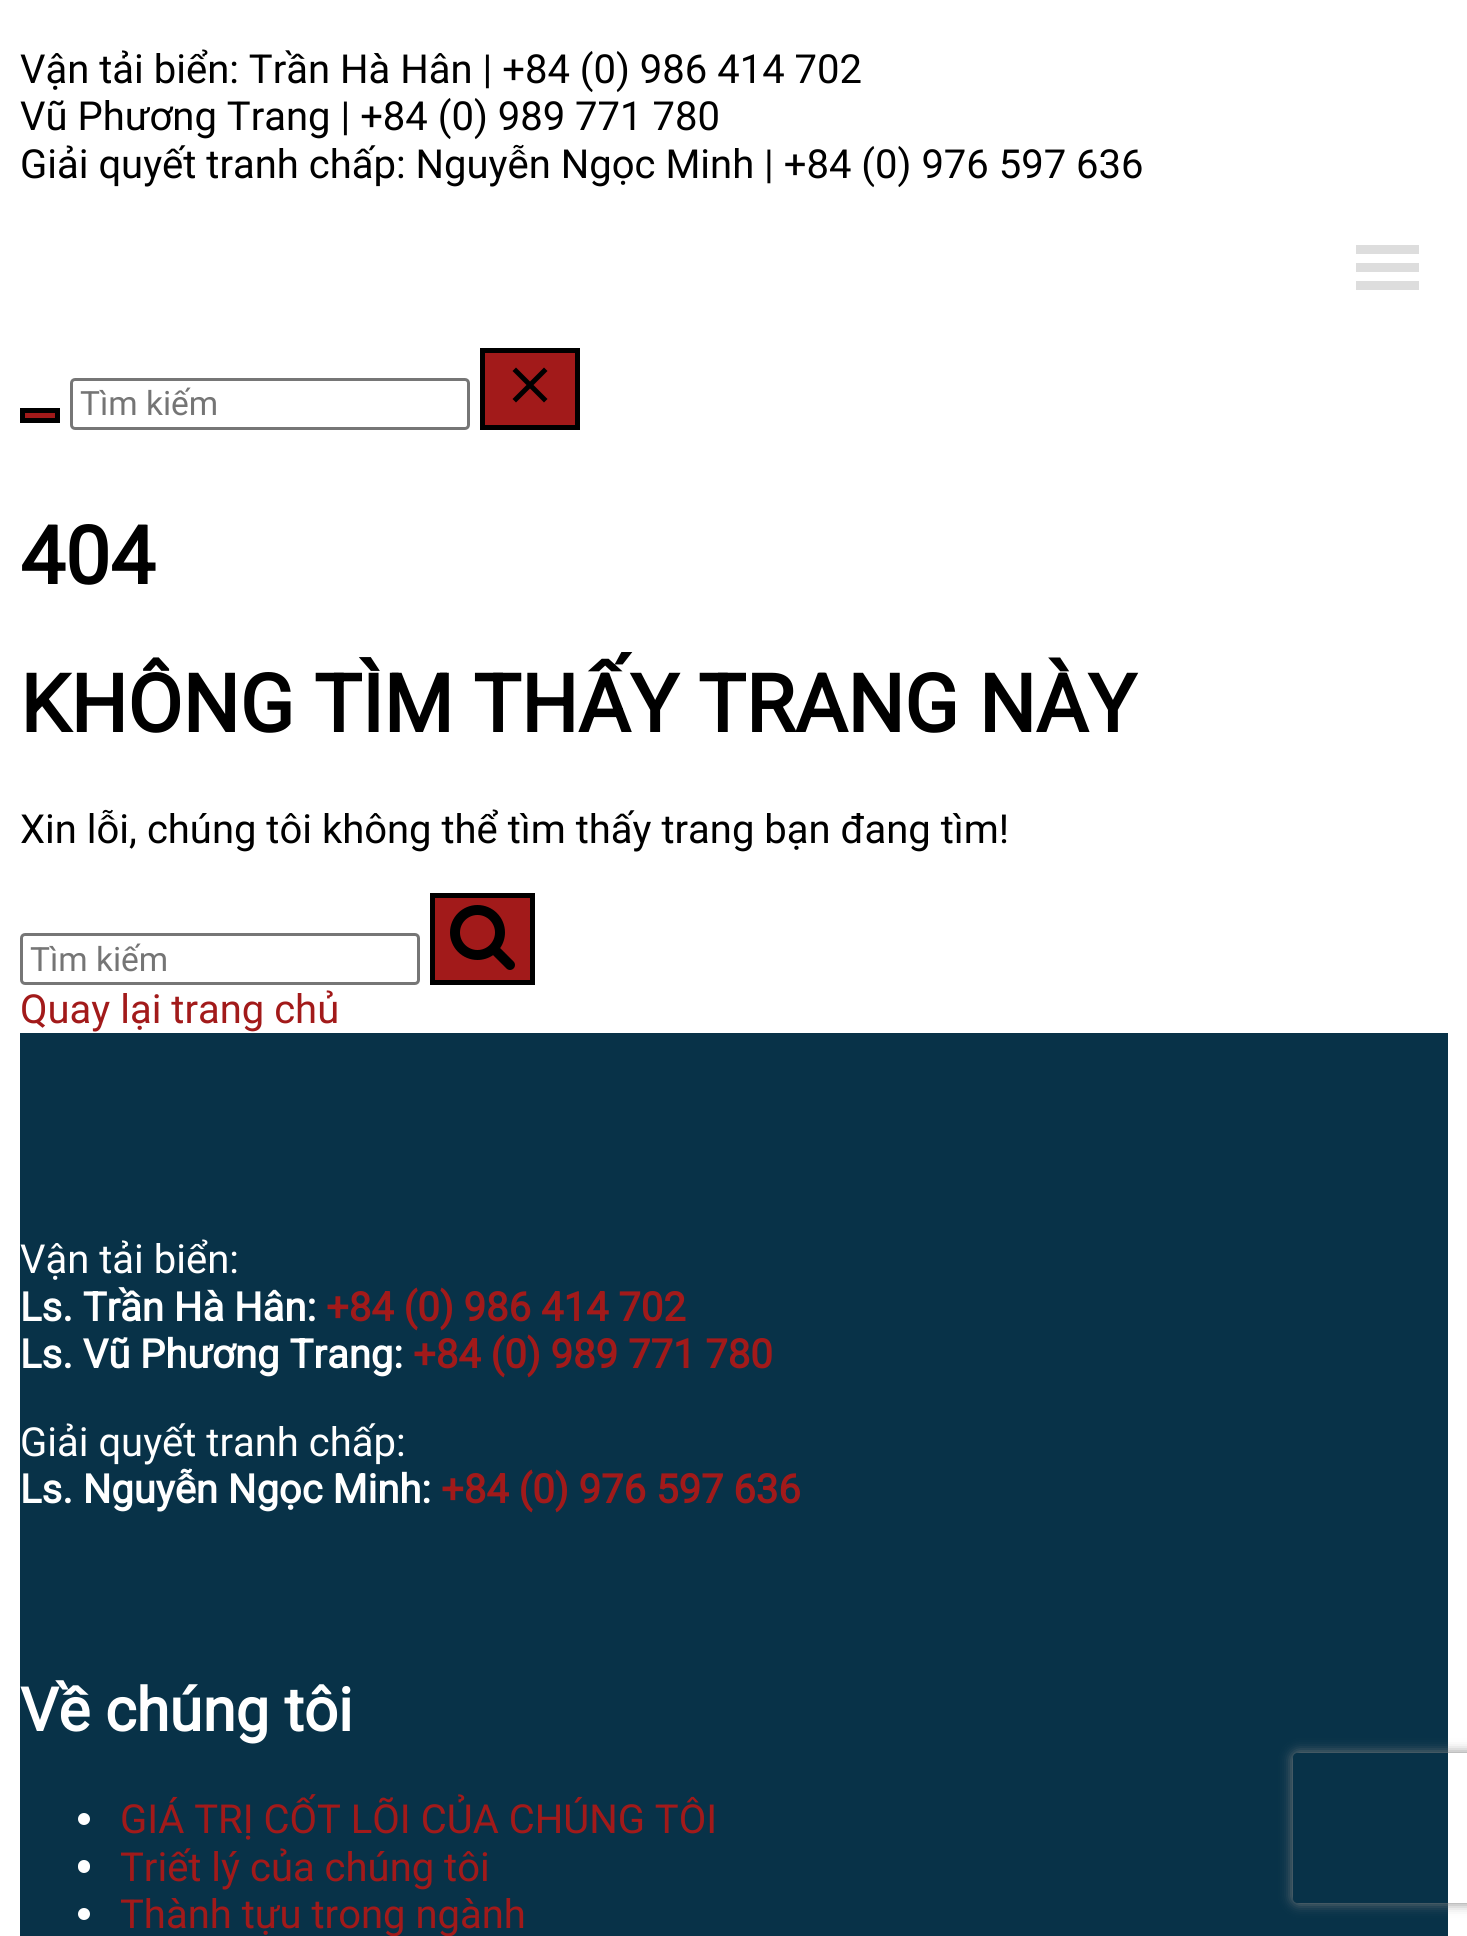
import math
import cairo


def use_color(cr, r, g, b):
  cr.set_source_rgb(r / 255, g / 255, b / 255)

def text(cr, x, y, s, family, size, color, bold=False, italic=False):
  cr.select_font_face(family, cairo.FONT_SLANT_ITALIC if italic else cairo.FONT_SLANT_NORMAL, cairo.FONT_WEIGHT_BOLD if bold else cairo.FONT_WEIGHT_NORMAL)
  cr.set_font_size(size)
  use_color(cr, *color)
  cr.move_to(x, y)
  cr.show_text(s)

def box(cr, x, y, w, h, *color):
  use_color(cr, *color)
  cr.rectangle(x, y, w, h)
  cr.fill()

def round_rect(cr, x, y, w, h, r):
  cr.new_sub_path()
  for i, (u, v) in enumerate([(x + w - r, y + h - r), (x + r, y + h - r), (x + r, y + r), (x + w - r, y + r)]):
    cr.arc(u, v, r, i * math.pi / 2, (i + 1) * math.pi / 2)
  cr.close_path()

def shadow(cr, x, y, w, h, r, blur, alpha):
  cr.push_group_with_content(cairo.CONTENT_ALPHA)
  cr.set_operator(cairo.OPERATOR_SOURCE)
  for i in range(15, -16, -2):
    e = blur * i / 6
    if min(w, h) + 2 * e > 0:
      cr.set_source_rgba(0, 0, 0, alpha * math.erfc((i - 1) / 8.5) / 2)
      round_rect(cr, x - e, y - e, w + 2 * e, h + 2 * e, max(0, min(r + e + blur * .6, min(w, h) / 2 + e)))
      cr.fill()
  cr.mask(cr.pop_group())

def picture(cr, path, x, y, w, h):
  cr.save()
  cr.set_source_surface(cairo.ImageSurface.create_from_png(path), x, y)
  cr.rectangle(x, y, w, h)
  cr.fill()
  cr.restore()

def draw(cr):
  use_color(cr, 255, 255, 255)
  cr.paint()
  use_color(cr, 221, 221, 221)
  cr.new_path()
  cr.move_to(1356, 290)
  cr.line_to(1419, 290)
  cr.line_to(1419, 281)
  cr.line_to(1356, 281)
  cr.close_path()
  cr.move_to(1356, 245)
  cr.line_to(1356, 254)
  cr.line_to(1419, 254)
  cr.line_to(1419, 245)
  cr.close_path()
  cr.move_to(1356, 272)
  cr.line_to(1419, 272)
  cr.line_to(1419, 263)
  cr.line_to(1356, 263)
  cr.close_path()
  cr.fill()
  use_color(cr, 162, 26, 26)
  cr.rectangle(22.5, 410.5, 35, 10)
  cr.fill_preserve()
  use_color(cr, 0, 0, 0)
  cr.set_line_width(5)
  cr.stroke()
  round_rect(cr, 71.5, 379.5, 397, 49, 3.5)
  use_color(cr, 118, 118, 118)
  cr.set_line_width(3)
  cr.stroke()
  use_color(cr, 162, 26, 26)
  cr.rectangle(482.5, 350.5, 95, 77)
  cr.fill_preserve()
  use_color(cr, 0, 0, 0)
  cr.set_line_width(5)
  cr.stroke()
  cr.new_path()
  cr.move_to(547.5, 371)
  cr.line_to(533.5, 385)
  cr.line_to(547.5, 399)
  cr.line_to(544, 402.5)
  cr.line_to(530, 388.5)
  cr.line_to(516, 402.5)
  cr.line_to(512.5, 399)
  cr.line_to(526.5, 385)
  cr.line_to(512.5, 371)
  cr.line_to(516, 367.5)
  cr.line_to(530, 381.5)
  cr.line_to(544, 367.5)
  cr.close_path()
  cr.fill()
  round_rect(cr, 21.5, 934.5, 397, 49, 3.5)
  use_color(cr, 118, 118, 118)
  cr.set_line_width(3)
  cr.stroke()
  use_color(cr, 162, 26, 26)
  cr.rectangle(432.5, 895.5, 100, 87)
  cr.fill_preserve()
  use_color(cr, 0, 0, 0)
  cr.set_line_width(5)
  cr.stroke()
  picture(cr, "img_01.png", 450, 905, 65, 65)
  box(cr, 20, 1033, 1428, 903, 8, 50, 72)
  use_color(cr, 255, 255, 255)
  cr.arc(84, 1819, 6, 0, 2 * math.pi)
  cr.fill()
  round_rect(cr, 78, 1860, 12, 13, 6)
  cr.fill()
  cr.arc(84, 1914, 6, 0, 2 * math.pi)
  cr.fill()
  cr.save()
  cr.set_fill_rule(cairo.FILL_RULE_EVEN_ODD)
  cr.new_path()
  cr.move_to(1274, 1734)
  cr.line_to(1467, 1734)
  cr.line_to(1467, 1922)
  cr.line_to(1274, 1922)
  cr.close_path()
  cr.move_to(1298, 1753)
  cr.line_to(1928, 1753)
  cr.curve_to(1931, 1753, 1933, 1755, 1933, 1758)
  cr.line_to(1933, 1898)
  cr.curve_to(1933, 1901, 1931, 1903, 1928, 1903)
  cr.line_to(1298, 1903)
  cr.curve_to(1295, 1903, 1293, 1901, 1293, 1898)
  cr.line_to(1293, 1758)
  cr.curve_to(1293, 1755, 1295, 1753, 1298, 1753)
  cr.close_path()
  cr.clip()
  use_color(cr, 128, 128, 128)
  shadow(cr, 1293, 1753, 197, 150, 5, 6, 1)
  cr.restore()
  text(cr, 20, 83, "Vận tải biển: Trần Hà Hân | +84 (0) 986 414 702", "Roboto", 40, (0, 0, 0))
  text(cr, 20, 130, "Vũ Phương Trang | +84 (0) 989 771 780", "Roboto", 40, (0, 0, 0))
  text(cr, 20, 178, "Giải quyết tranh chấp: Nguyễn Ngọc Minh | +84 (0) 976 597 636", "Roboto", 40, (0, 0, 0))
  text(cr, 80, 415, "Tìm kiếm", "Roboto", 33.5, (117, 117, 117))
  text(cr, 20, 584, "404", "Roboto", 80, (0, 0, 0), bold=True)
  text(cr, 20, 732, "KHÔNG TÌM THẤY TRANG NÀY", "Roboto", 80, (0, 0, 0), bold=True)
  text(cr, 20, 843, "Xin lỗi, chúng tôi không thể tìm thấy trang bạn đang tìm!", "Roboto", 40, (0, 0, 0))
  text(cr, 30, 971, "Tìm kiếm", "Roboto", 33.5, (117, 117, 117))
  text(cr, 20, 1023, "Quay lại trang chủ", "Roboto", 40, (162, 26, 26))
  text(cr, 20, 1273, "Vận tải biển:", "Roboto", 40, (255, 255, 255))
  text(cr, 20, 1321, "Ls. Trần Hà Hân:", "Roboto", 40, (255, 255, 255), bold=True)
  text(cr, 326, 1321, "+84 (0) 986 414 702", "Roboto", 40, (162, 26, 26), bold=True)
  text(cr, 20, 1368, "Ls. Vũ Phương Trang:", "Roboto", 40, (255, 255, 255), bold=True)
  text(cr, 413, 1368, "+84 (0) 989 771 780", "Roboto", 40, (162, 26, 26), bold=True)
  text(cr, 20, 1456, "Giải quyết tranh chấp:", "Roboto", 40, (255, 255, 255))
  text(cr, 20, 1503, "Ls. Nguyễn Ngọc Minh:", "Roboto", 40, (255, 255, 255), bold=True)
  text(cr, 441, 1503, "+84 (0) 976 597 636", "Roboto", 40, (162, 26, 26), bold=True)
  text(cr, 20, 1731, "Về chúng tôi", "Roboto", 60, (255, 255, 255), bold=True)
  text(cr, 120, 1833, "GIÁ TRỊ CỐT LÕI CỦA CHÚNG TÔI", "Roboto", 40, (162, 26, 26))
  text(cr, 120, 1881, "Triết lý của chúng tôi", "Roboto", 40, (162, 26, 26))
  text(cr, 120, 1928, "Thành tựu trong ngành", "Roboto", 40, (162, 26, 26))


surface = cairo.ImageSurface(cairo.FORMAT_RGB24, 1467, 1936)
cr = cairo.Context(surface)
options = cairo.FontOptions()
options.set_hint_metrics(cairo.HINT_METRICS_OFF)
options.set_hint_style(cairo.HINT_STYLE_NONE)
cr.set_font_options(options)
cr.set_miter_limit(4)
draw(cr)
surface.write_to_png("out.png")
